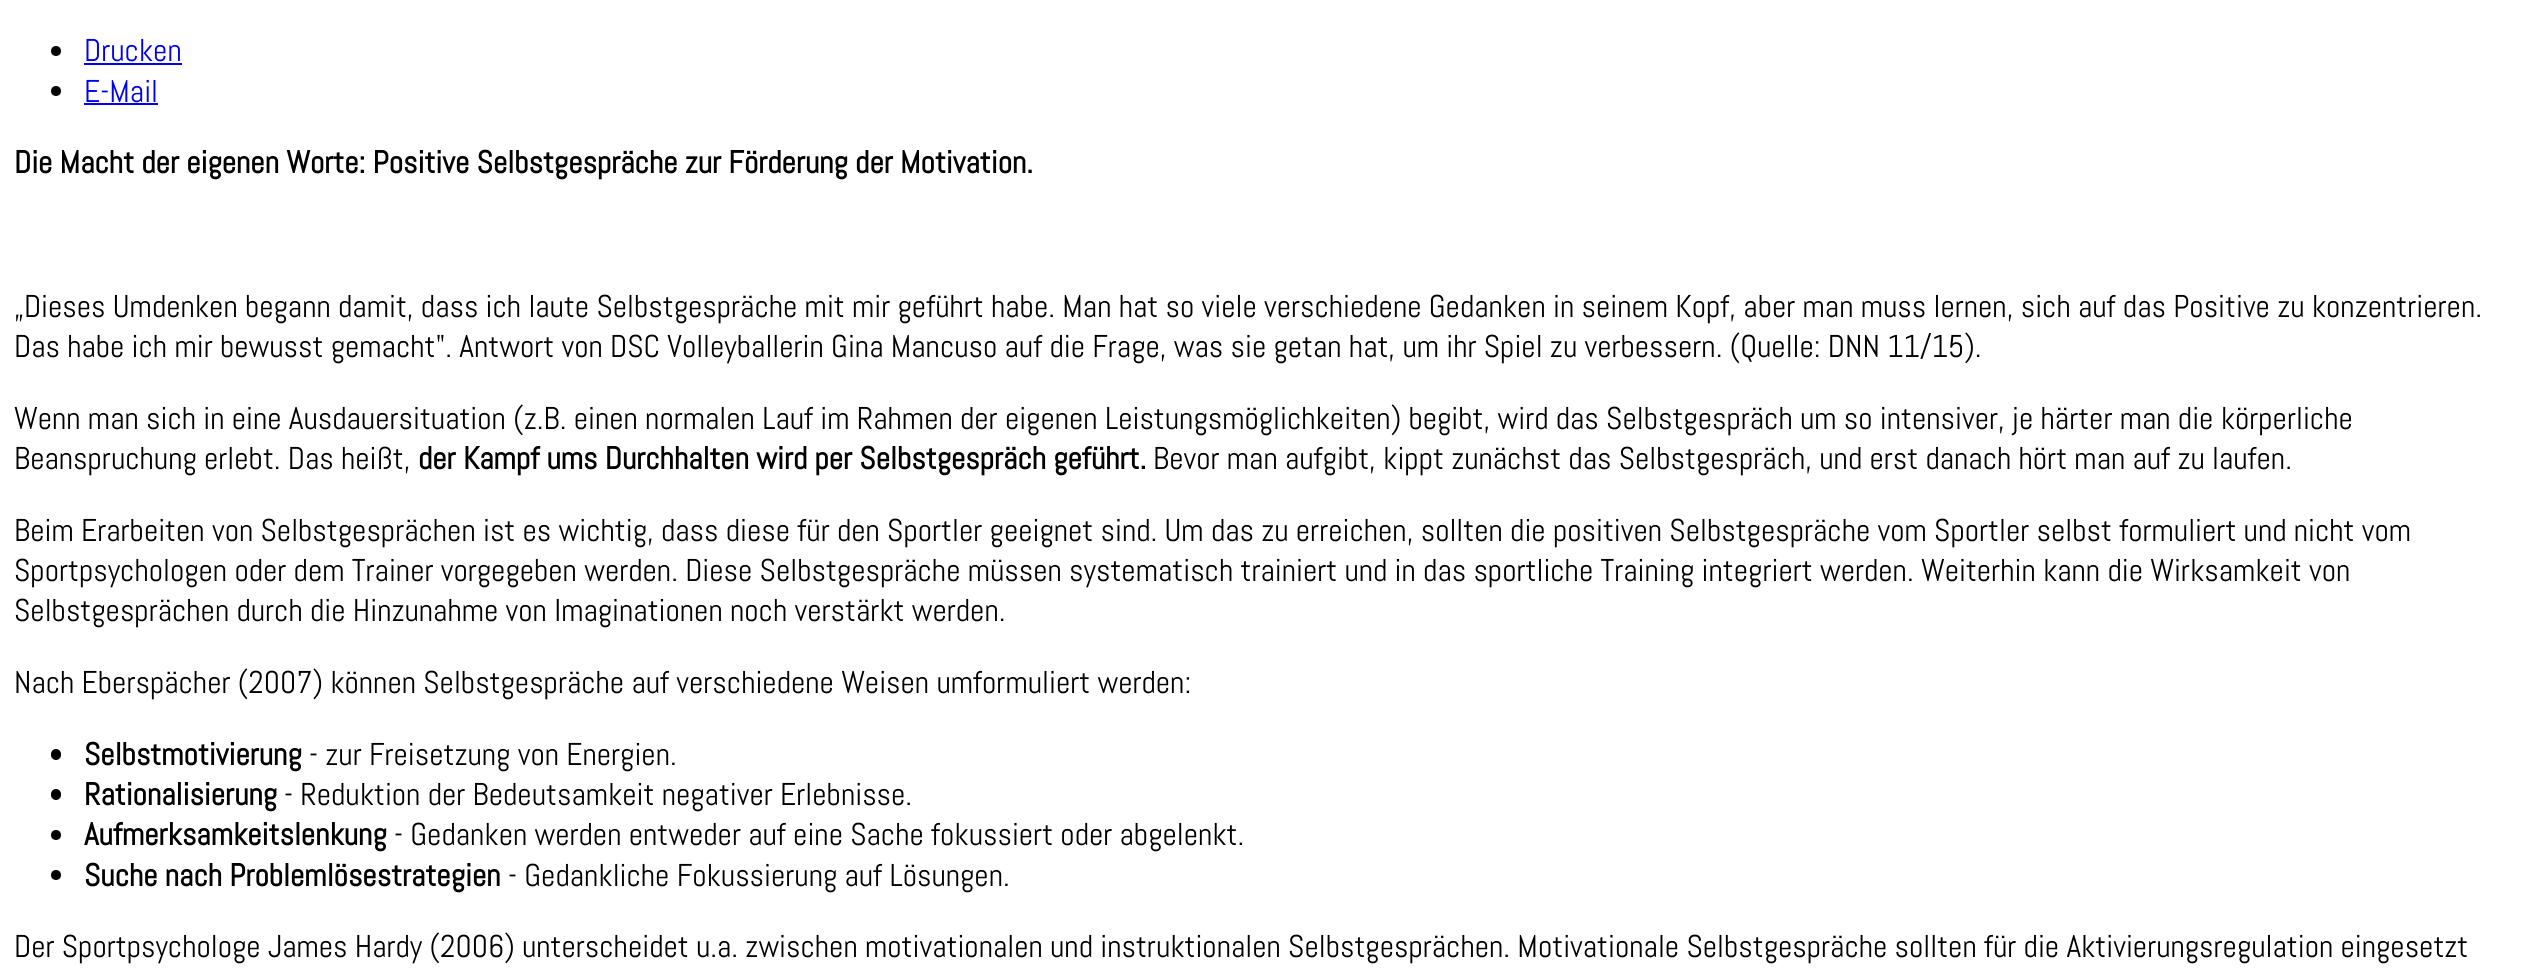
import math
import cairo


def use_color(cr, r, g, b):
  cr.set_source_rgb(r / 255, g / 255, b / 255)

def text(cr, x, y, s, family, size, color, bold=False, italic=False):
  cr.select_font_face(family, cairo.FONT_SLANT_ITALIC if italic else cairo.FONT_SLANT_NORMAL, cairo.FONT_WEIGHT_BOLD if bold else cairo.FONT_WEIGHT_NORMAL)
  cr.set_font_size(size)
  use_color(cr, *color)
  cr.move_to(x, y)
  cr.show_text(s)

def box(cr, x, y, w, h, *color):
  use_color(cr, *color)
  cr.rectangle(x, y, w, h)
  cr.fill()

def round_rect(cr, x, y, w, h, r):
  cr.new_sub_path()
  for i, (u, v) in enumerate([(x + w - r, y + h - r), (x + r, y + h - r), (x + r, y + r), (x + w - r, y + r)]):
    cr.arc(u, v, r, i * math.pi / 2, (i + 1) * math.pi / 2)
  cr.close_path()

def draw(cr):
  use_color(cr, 255, 255, 255)
  cr.paint()
  use_color(cr, 0, 0, 0)
  cr.arc(56, 51, 5, 0, 2 * math.pi)
  cr.fill()
  box(cr, 84, 63, 98, 2, 0, 0, 238)
  use_color(cr, 0, 0, 0)
  cr.arc(56, 91, 5, 0, 2 * math.pi)
  cr.fill()
  box(cr, 84, 103, 74, 2, 0, 0, 238)
  use_color(cr, 0, 0, 0)
  round_rect(cr, 51, 749, 10, 11, 5)
  cr.fill()
  round_rect(cr, 51, 789, 10, 11, 5)
  cr.fill()
  cr.arc(56, 835, 5, 0, 2 * math.pi)
  cr.fill()
  cr.arc(56, 875, 5, 0, 2 * math.pi)
  cr.fill()
  text(cr, 84, 61, "Drucken", "Abel", 31.5, (0, 0, 238))
  text(cr, 84, 102, "E-Mail", "Abel", 31.5, (0, 0, 238))
  text(cr, 14, 173, "Die Macht der eigenen Worte: Positive Selbstgespräche zur Förderung der Motivation.", "Abel", 31.5, (0, 0, 0), bold=True)
  text(cr, 14, 317, "„Dieses Umdenken begann damit, dass ich laute Selbstgespräche mit mir geführt habe. Man hat so viele verschiedene Gedanken in seinem Kopf, aber man muss lernen, sich auf das Positive zu konzentrieren.", "Abel", 31.5, (0, 0, 0))
  text(cr, 14, 357, "Das habe ich mir bewusst gemacht\". Antwort von DSC Volleyballerin Gina Mancuso auf die Frage, was sie getan hat, um ihr Spiel zu verbessern. (Quelle: DNN 11/15).", "Abel", 31.5, (0, 0, 0))
  text(cr, 14, 429, "Wenn man sich in eine Ausdauersituation (z.B. einen normalen Lauf im Rahmen der eigenen Leistungsmöglichkeiten) begibt, wird das Selbstgespräch um so intensiver, je härter man die körperliche", "Abel", 31.5, (0, 0, 0))
  text(cr, 14, 469, "Beanspruchung erlebt. Das heißt,", "Abel", 31.5, (0, 0, 0))
  text(cr, 418, 469, "der Kampf ums Durchhalten wird per Selbstgespräch geführt.", "Abel", 31.5, (0, 0, 0), bold=True)
  text(cr, 1153, 469, "Bevor man aufgibt, kippt zunächst das Selbstgespräch, und erst danach hört man auf zu laufen.", "Abel", 31.5, (0, 0, 0))
  text(cr, 14, 541, "Beim Erarbeiten von Selbstgesprächen ist es wichtig, dass diese für den Sportler geeignet sind. Um das zu erreichen, sollten die positiven Selbstgespräche vom Sportler selbst formuliert und nicht vom", "Abel", 31.5, (0, 0, 0))
  text(cr, 14, 581, "Sportpsychologen oder dem Trainer vorgegeben werden. Diese Selbstgespräche müssen systematisch trainiert und in das sportliche Training integriert werden. Weiterhin kann die Wirksamkeit von", "Abel", 31.5, (0, 0, 0))
  text(cr, 14, 621, "Selbstgesprächen durch die Hinzunahme von Imaginationen noch verstärkt werden.", "Abel", 31.5, (0, 0, 0))
  text(cr, 14, 693, "Nach Eberspächer (2007) können Selbstgespräche auf verschiedene Weisen umformuliert werden:", "Abel", 31.5, (0, 0, 0))
  text(cr, 84, 765, "Selbstmotivierung", "Abel", 31.5, (0, 0, 0), bold=True)
  text(cr, 309, 765, "- zur Freisetzung von Energien.", "Abel", 31.5, (0, 0, 0))
  text(cr, 84, 805, "Rationalisierung", "Abel", 31.5, (0, 0, 0), bold=True)
  text(cr, 284, 805, "- Reduktion der Bedeutsamkeit negativer Erlebnisse.", "Abel", 31.5, (0, 0, 0))
  text(cr, 84, 845, "Aufmerksamkeitslenkung", "Abel", 31.5, (0, 0, 0), bold=True)
  text(cr, 394, 845, "- Gedanken werden entweder auf eine Sache fokussiert oder abgelenkt.", "Abel", 31.5, (0, 0, 0))
  text(cr, 84, 886, "Suche nach Problemlösestrategien", "Abel", 31.5, (0, 0, 0), bold=True)
  text(cr, 508, 886, "- Gedankliche Fokussierung auf Lösungen.", "Abel", 31.5, (0, 0, 0))
  text(cr, 14, 957, "Der Sportpsychologe James Hardy (2006) unterscheidet u.a. zwischen motivationalen und instruktionalen Selbstgesprächen. Motivationale Selbstgespräche sollten für die Aktivierungsregulation eingesetzt", "Abel", 31.5, (0, 0, 0))


surface = cairo.ImageSurface(cairo.FORMAT_RGB24, 2521, 978)
cr = cairo.Context(surface)
options = cairo.FontOptions()
options.set_hint_metrics(cairo.HINT_METRICS_OFF)
options.set_hint_style(cairo.HINT_STYLE_NONE)
cr.set_font_options(options)
cr.set_miter_limit(4)
draw(cr)
surface.write_to_png("out.png")
